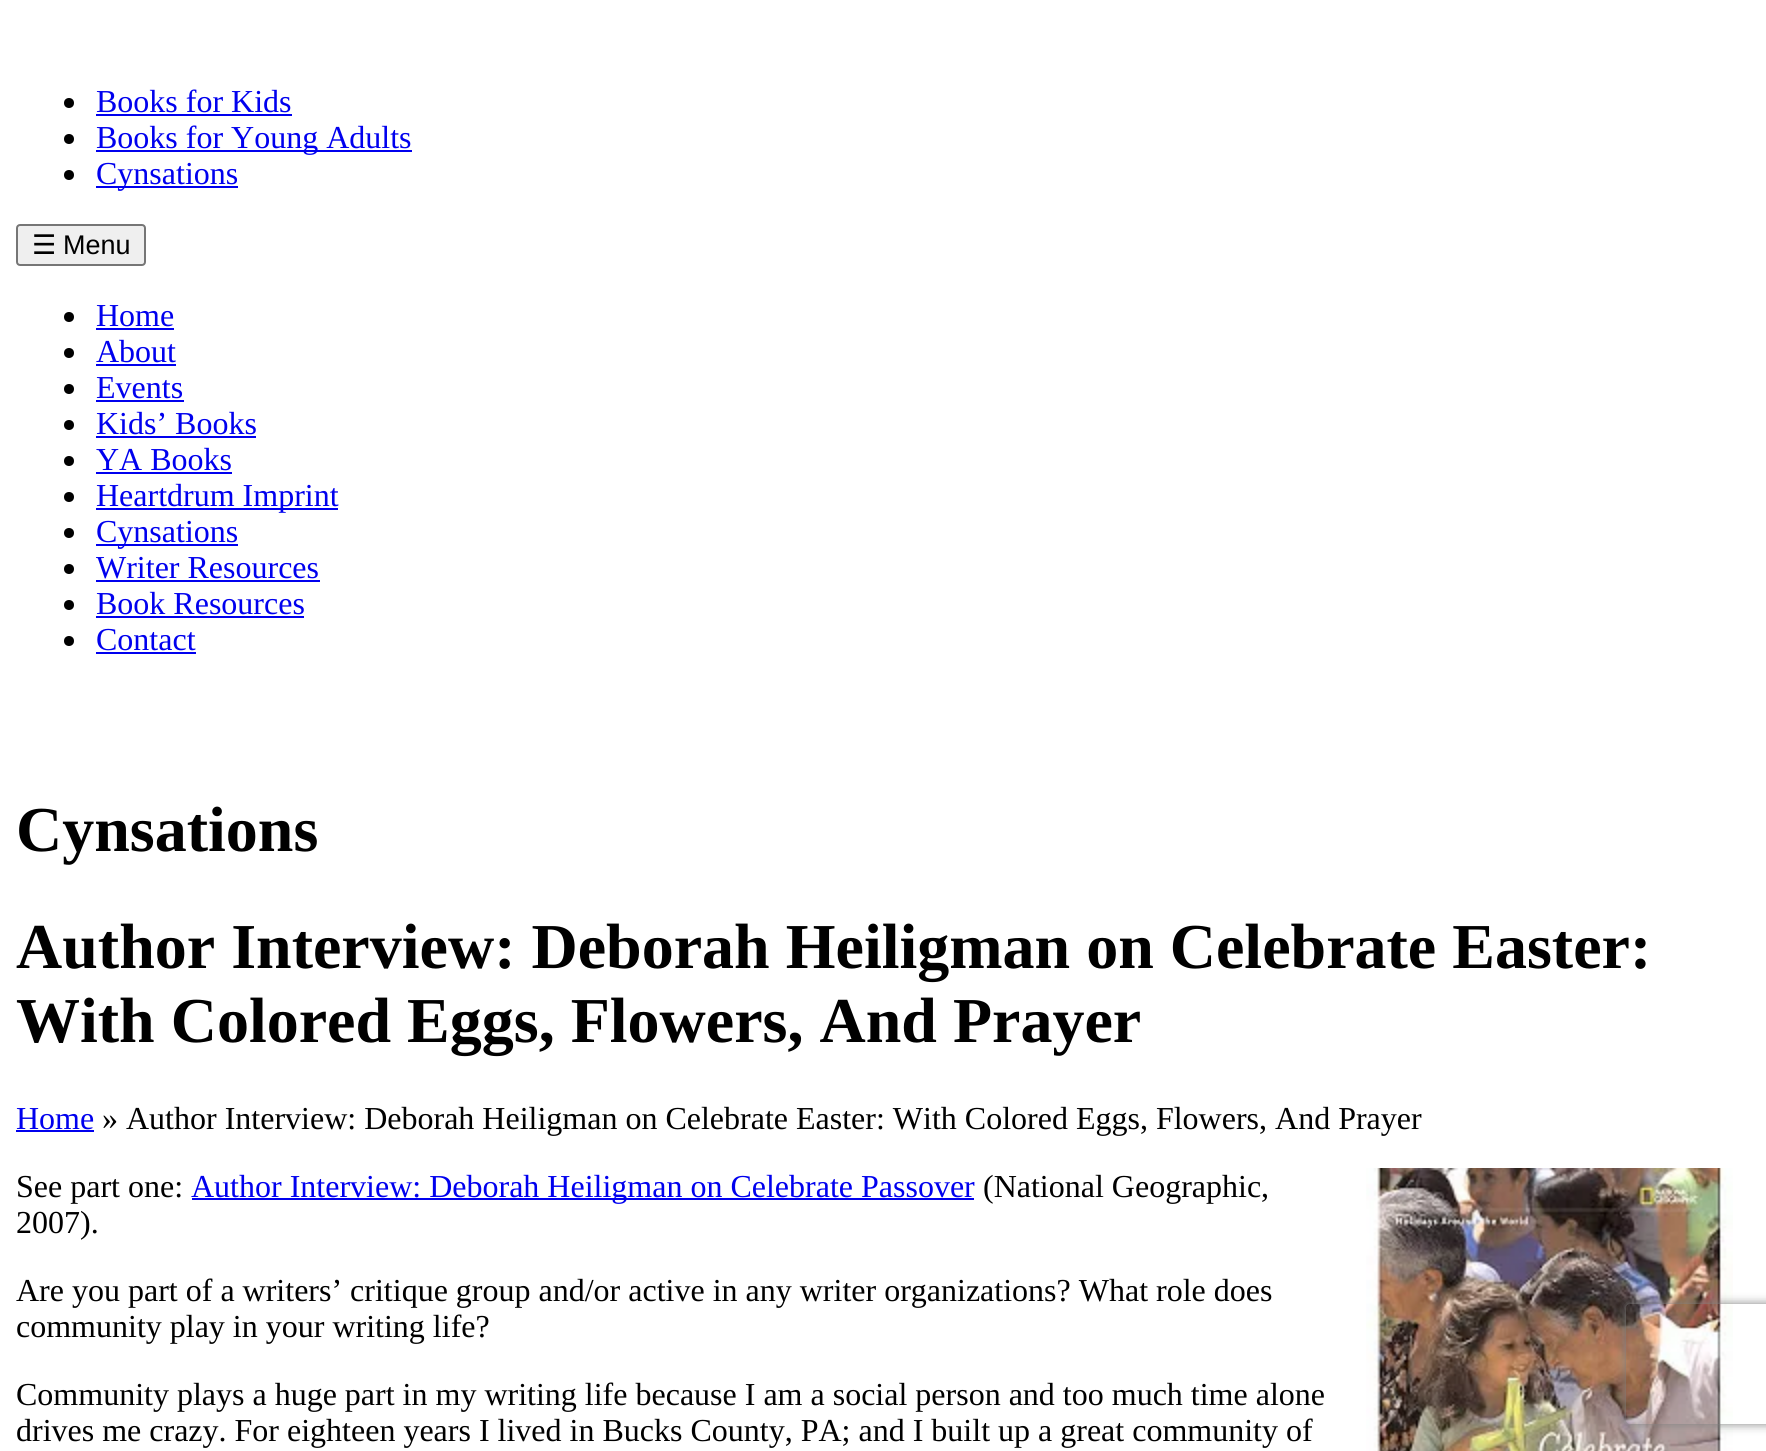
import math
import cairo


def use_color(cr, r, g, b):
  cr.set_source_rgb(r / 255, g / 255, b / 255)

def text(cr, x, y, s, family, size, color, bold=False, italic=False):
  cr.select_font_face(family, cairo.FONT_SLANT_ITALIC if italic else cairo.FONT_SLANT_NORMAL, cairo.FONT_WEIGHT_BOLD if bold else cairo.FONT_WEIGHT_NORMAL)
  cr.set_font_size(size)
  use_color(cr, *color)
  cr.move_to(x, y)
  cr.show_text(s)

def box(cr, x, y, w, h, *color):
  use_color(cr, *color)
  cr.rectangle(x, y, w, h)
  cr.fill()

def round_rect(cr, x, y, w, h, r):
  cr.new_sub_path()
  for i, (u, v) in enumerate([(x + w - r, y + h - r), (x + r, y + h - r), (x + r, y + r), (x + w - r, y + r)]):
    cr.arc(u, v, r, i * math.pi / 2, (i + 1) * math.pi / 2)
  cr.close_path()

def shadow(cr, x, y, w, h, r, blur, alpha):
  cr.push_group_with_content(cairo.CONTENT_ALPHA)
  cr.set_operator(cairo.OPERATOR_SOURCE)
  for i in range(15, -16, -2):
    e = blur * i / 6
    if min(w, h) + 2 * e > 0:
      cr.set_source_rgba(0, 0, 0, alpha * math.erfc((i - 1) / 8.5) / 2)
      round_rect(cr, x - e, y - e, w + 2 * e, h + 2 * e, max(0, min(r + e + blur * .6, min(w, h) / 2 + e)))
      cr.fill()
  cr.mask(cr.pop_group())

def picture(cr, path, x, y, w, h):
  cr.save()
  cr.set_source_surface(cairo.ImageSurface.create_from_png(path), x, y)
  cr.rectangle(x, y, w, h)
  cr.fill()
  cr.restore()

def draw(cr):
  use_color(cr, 255, 255, 255)
  cr.paint()
  use_color(cr, 0, 0, 0)
  cr.arc(69, 103, 5, 0, 2 * math.pi)
  cr.fill()
  box(cr, 96, 114, 196, 2, 0, 0, 238)
  use_color(cr, 0, 0, 0)
  cr.arc(69, 139, 5, 0, 2 * math.pi)
  cr.fill()
  box(cr, 96, 150, 316, 2, 0, 0, 238)
  use_color(cr, 0, 0, 0)
  cr.arc(69, 175, 5, 0, 2 * math.pi)
  cr.fill()
  box(cr, 96, 186, 142, 2, 0, 0, 238)
  use_color(cr, 239, 239, 239)
  round_rect(cr, 17, 225, 128, 40, 3)
  cr.fill_preserve()
  use_color(cr, 118, 118, 118)
  cr.stroke()
  use_color(cr, 0, 0, 0)
  cr.arc(69, 317, 5, 0, 2 * math.pi)
  cr.fill()
  box(cr, 96, 328, 78, 2, 0, 0, 238)
  use_color(cr, 0, 0, 0)
  cr.arc(69, 353, 5, 0, 2 * math.pi)
  cr.fill()
  box(cr, 96, 364, 80, 2, 0, 0, 238)
  use_color(cr, 0, 0, 0)
  cr.arc(69, 389, 5, 0, 2 * math.pi)
  cr.fill()
  box(cr, 96, 400, 88, 2, 0, 0, 238)
  use_color(cr, 0, 0, 0)
  cr.arc(69, 425, 5, 0, 2 * math.pi)
  cr.fill()
  box(cr, 96, 436, 160, 2, 0, 0, 238)
  use_color(cr, 0, 0, 0)
  cr.arc(69, 461, 5, 0, 2 * math.pi)
  cr.fill()
  box(cr, 96, 472, 136, 2, 0, 0, 238)
  use_color(cr, 0, 0, 0)
  cr.arc(69, 497, 5, 0, 2 * math.pi)
  cr.fill()
  box(cr, 96, 508, 242, 2, 0, 0, 238)
  use_color(cr, 0, 0, 0)
  cr.arc(69, 533, 5, 0, 2 * math.pi)
  cr.fill()
  box(cr, 96, 544, 142, 2, 0, 0, 238)
  use_color(cr, 0, 0, 0)
  cr.arc(69, 569, 5, 0, 2 * math.pi)
  cr.fill()
  box(cr, 96, 580, 224, 2, 0, 0, 238)
  use_color(cr, 0, 0, 0)
  cr.arc(69, 605, 5, 0, 2 * math.pi)
  cr.fill()
  box(cr, 96, 616, 208, 2, 0, 0, 238)
  use_color(cr, 0, 0, 0)
  cr.arc(69, 641, 5, 0, 2 * math.pi)
  cr.fill()
  box(cr, 96, 652, 100, 2, 0, 0, 238)
  box(cr, 16, 1130, 78, 2, 0, 0, 238)
  box(cr, 192, 1198, 782, 2, 0, 0, 238)
  picture(cr, "img_01.png", 1366, 1168, 367, 283)
  cr.save()
  cr.set_fill_rule(cairo.FILL_RULE_EVEN_ODD)
  cr.new_path()
  cr.move_to(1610, 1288)
  cr.line_to(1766, 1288)
  cr.line_to(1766, 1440)
  cr.line_to(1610, 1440)
  cr.close_path()
  cr.move_to(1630, 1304)
  cr.line_to(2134, 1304)
  cr.curve_to(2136, 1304, 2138, 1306, 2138, 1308)
  cr.line_to(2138, 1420)
  cr.curve_to(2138, 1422, 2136, 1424, 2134, 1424)
  cr.line_to(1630, 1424)
  cr.curve_to(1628, 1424, 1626, 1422, 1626, 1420)
  cr.line_to(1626, 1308)
  cr.curve_to(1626, 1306, 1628, 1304, 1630, 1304)
  cr.close_path()
  cr.clip()
  use_color(cr, 128, 128, 128)
  shadow(cr, 1626, 1304, 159, 120, 4, 5, 1)
  cr.restore()
  text(cr, 96, 112, "Books for Kids", "Liberation Serif", 32, (0, 0, 238))
  text(cr, 96, 148, "Books for Young Adults", "Liberation Serif", 32, (0, 0, 238))
  text(cr, 96, 184, "Cynsations", "Liberation Serif", 32, (0, 0, 238))
  text(cr, 32, 254, "☰", "DejaVu Sans", 27, (0, 0, 0))
  text(cr, 63, 254, "Menu", "Liberation Sans", 27, (0, 0, 0))
  text(cr, 96, 326, "Home", "Liberation Serif", 32, (0, 0, 238))
  text(cr, 96, 362, "About", "Liberation Serif", 32, (0, 0, 238))
  text(cr, 96, 398, "Events", "Liberation Serif", 32, (0, 0, 238))
  text(cr, 96, 434, "Kids’ Books", "Liberation Serif", 32, (0, 0, 238))
  text(cr, 96, 470, "YA Books", "Liberation Serif", 32, (0, 0, 238))
  text(cr, 96, 506, "Heartdrum Imprint", "Liberation Serif", 32, (0, 0, 238))
  text(cr, 96, 542, "Cynsations", "Liberation Serif", 32, (0, 0, 238))
  text(cr, 96, 578, "Writer Resources", "Liberation Serif", 32, (0, 0, 238))
  text(cr, 96, 614, "Book Resources", "Liberation Serif", 32, (0, 0, 238))
  text(cr, 96, 650, "Contact", "Liberation Serif", 32, (0, 0, 238))
  text(cr, 16, 851, "Cynsations", "Liberation Serif", 64, (0, 0, 0), bold=True)
  text(cr, 16, 968, "Author Interview: Deborah Heiligman on Celebrate Easter:", "Liberation Serif", 64, (0, 0, 0), bold=True)
  text(cr, 16, 1042, "With Colored Eggs, Flowers, And Prayer", "Liberation Serif", 64, (0, 0, 0), bold=True)
  text(cr, 16, 1129, "Home", "Liberation Serif", 32, (0, 0, 238))
  text(cr, 102, 1129, "» Author Interview: Deborah Heiligman on Celebrate Easter: With Colored Eggs, Flowers, And Prayer", "Liberation Serif", 32, (0, 0, 0))
  text(cr, 16, 1197, "See part one:", "Liberation Serif", 32, (0, 0, 0))
  text(cr, 191, 1197, "Author Interview: Deborah Heiligman on Celebrate Passover", "Liberation Serif", 32, (0, 0, 238))
  text(cr, 983, 1197, "(National Geographic,", "Liberation Serif", 32, (0, 0, 0))
  text(cr, 16, 1233, "2007).", "Liberation Serif", 32, (0, 0, 0))
  text(cr, 16, 1301, "Are you part of a writers’ critique group and/or active in any writer organizations? What role does", "Liberation Serif", 32, (0, 0, 0))
  text(cr, 16, 1337, "community play in your writing life?", "Liberation Serif", 32, (0, 0, 0))
  text(cr, 16, 1405, "Community plays a huge part in my writing life because I am a social person and too much time alone", "Liberation Serif", 32, (0, 0, 0))
  text(cr, 16, 1441, "drives me crazy. For eighteen years I lived in Bucks County, PA; and I built up a great community of", "Liberation Serif", 32, (0, 0, 0))


surface = cairo.ImageSurface(cairo.FORMAT_RGB24, 1766, 1451)
cr = cairo.Context(surface)
options = cairo.FontOptions()
options.set_hint_metrics(cairo.HINT_METRICS_OFF)
options.set_hint_style(cairo.HINT_STYLE_NONE)
cr.set_font_options(options)
cr.set_miter_limit(4)
draw(cr)
surface.write_to_png("out.png")
